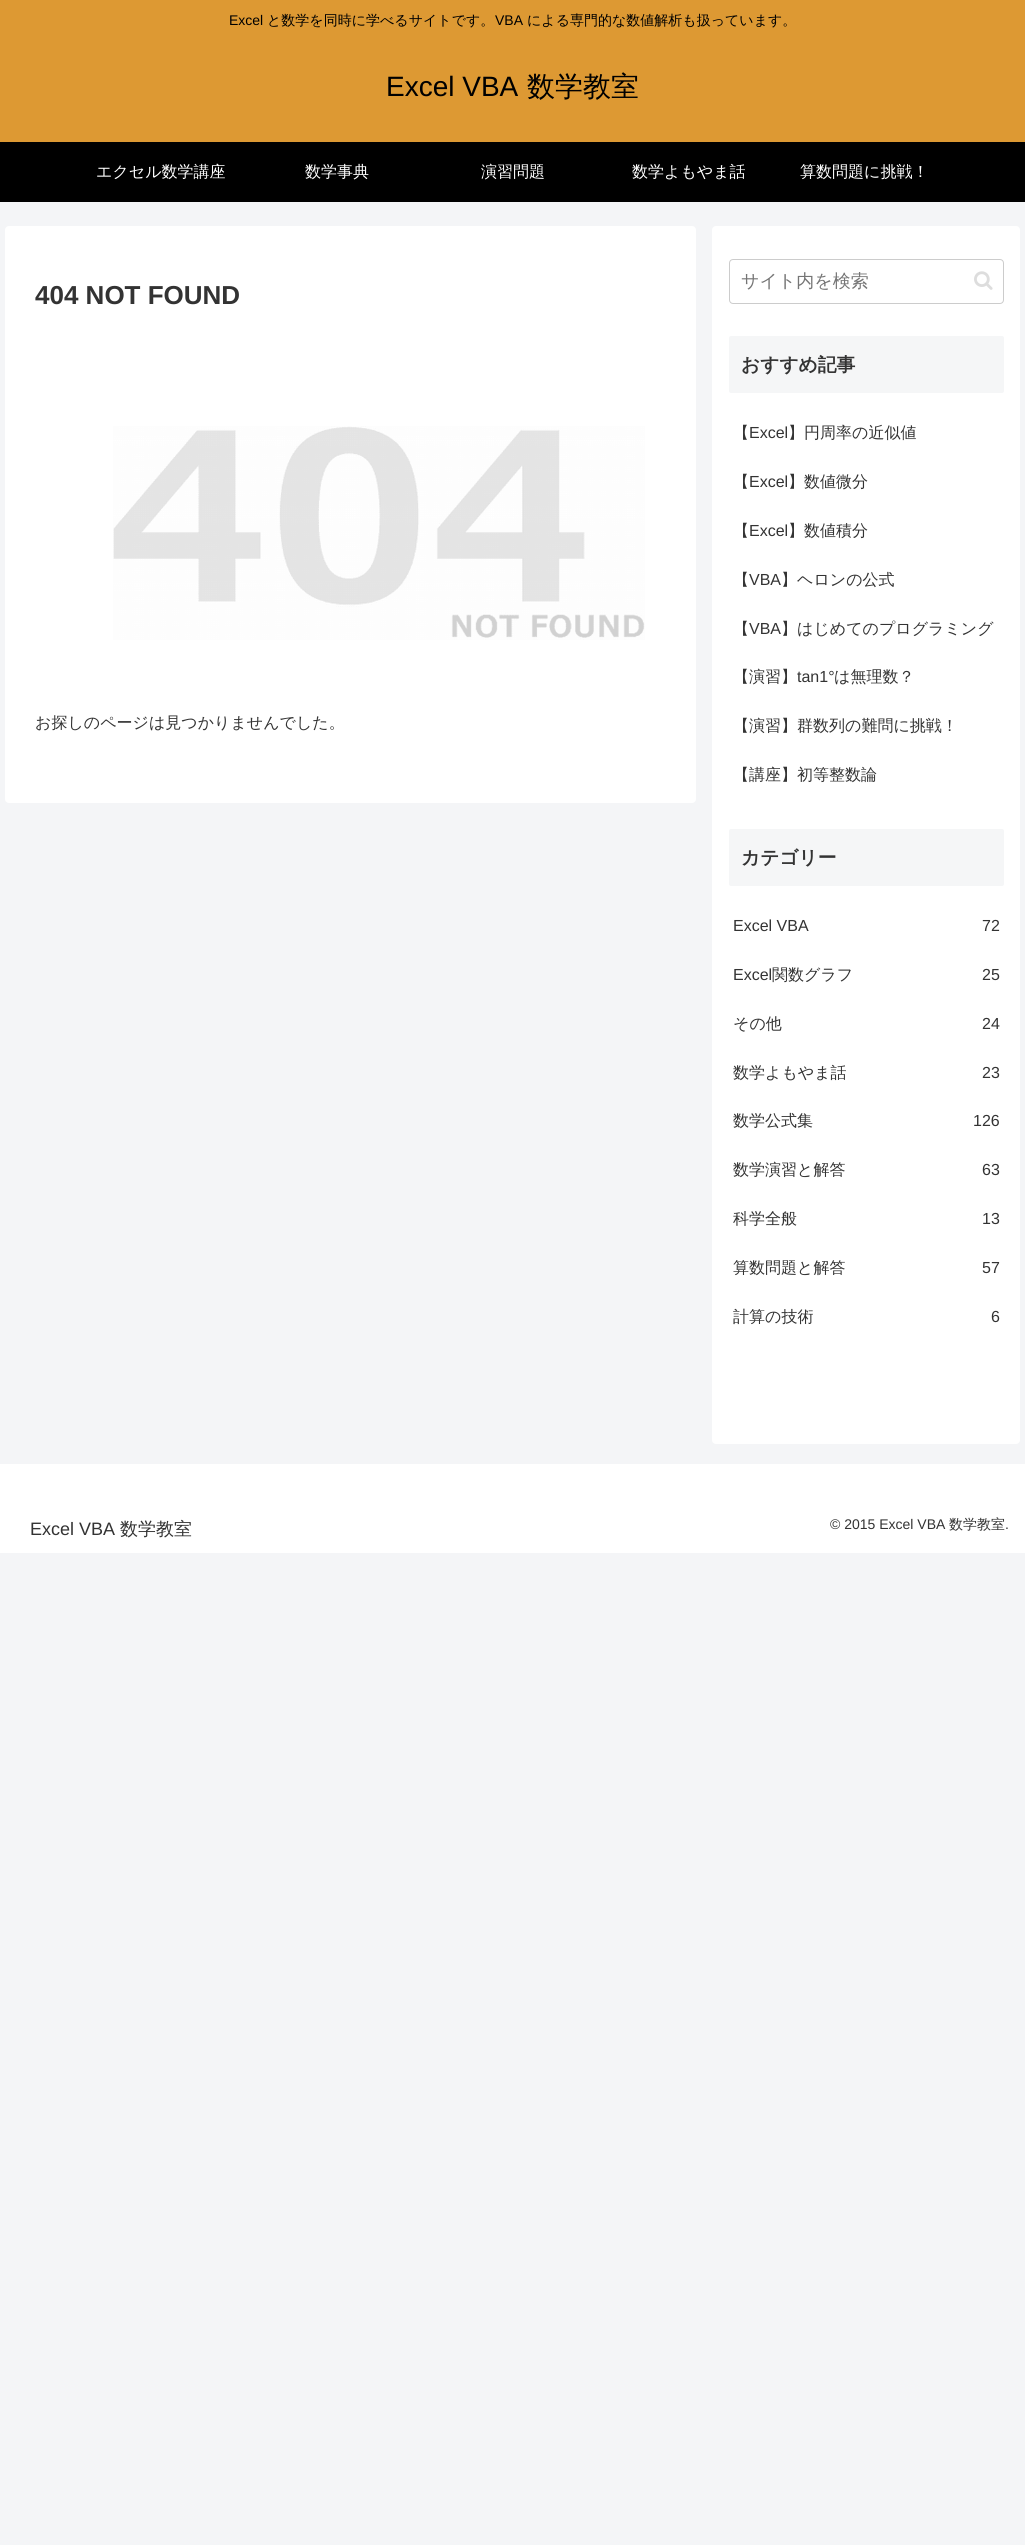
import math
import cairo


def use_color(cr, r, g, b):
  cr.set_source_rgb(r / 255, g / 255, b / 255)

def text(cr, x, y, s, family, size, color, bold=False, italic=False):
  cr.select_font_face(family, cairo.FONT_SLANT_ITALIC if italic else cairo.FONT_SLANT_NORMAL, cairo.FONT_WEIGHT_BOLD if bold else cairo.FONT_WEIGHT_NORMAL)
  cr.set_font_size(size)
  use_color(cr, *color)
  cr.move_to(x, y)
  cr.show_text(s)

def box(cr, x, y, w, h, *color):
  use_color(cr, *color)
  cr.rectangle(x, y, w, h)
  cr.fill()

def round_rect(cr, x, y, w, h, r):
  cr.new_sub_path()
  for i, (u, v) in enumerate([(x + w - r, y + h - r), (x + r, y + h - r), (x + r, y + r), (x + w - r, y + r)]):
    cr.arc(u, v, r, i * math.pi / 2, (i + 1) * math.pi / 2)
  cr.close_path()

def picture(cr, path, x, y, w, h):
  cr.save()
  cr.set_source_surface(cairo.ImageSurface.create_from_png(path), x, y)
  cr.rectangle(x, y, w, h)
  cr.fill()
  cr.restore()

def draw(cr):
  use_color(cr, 244, 245, 247)
  cr.paint()
  box(cr, 0, 0, 1025, 142, 221, 153, 51)
  box(cr, 0, 142, 1025, 60, 0, 0, 0)
  use_color(cr, 255, 255, 255)
  round_rect(cr, 5, 226, 691, 577, 4)
  cr.fill()
  picture(cr, "img_01.png", 113, 426, 532, 214)
  round_rect(cr, 712, 226, 308, 1218, 4)
  cr.fill()
  round_rect(cr, 729.5, 259.5, 274, 44, 3.5)
  use_color(cr, 204, 204, 204)
  cr.set_line_width(1)
  cr.stroke()
  picture(cr, "img_02.png", 974, 271, 19, 19)
  use_color(cr, 245, 246, 247)
  round_rect(cr, 729, 336, 275, 57, 2)
  cr.fill()
  round_rect(cr, 729, 829, 275, 57, 2)
  cr.fill()
  box(cr, 0, 1464, 1025, 89, 255, 255, 255)
  text(cr, 229, 25, "Excel", "Liberation Sans", 14, (0, 0, 0))
  text(cr, 267, 25, "と数学を同時に学べるサイトです。", "WenQuanYi Zen Hei Medium", 14, (0, 0, 0))
  text(cr, 495, 25, "VBA", "Liberation Sans", 14, (0, 0, 0))
  text(cr, 527, 25, "による専門的な数値解析も扱っています。", "WenQuanYi Zen Hei Medium", 14, (0, 0, 0))
  text(cr, 386, 96, "Excel VBA", "Liberation Sans", 28, (0, 0, 0))
  text(cr, 527, 96, "数学教室", "WenQuanYi Zen Hei Medium", 28, (0, 0, 0))
  text(cr, 96, 177, "エクセル数学講座", "WenQuanYi Zen Hei Medium", 16, (255, 255, 255))
  text(cr, 305, 177, "数学事典", "WenQuanYi Zen Hei Medium", 16, (255, 255, 255))
  text(cr, 481, 177, "演習問題", "WenQuanYi Zen Hei Medium", 16, (255, 255, 255))
  text(cr, 632, 177, "数学よもやま話", "WenQuanYi Zen Hei Medium", 16, (255, 255, 255))
  text(cr, 800, 177, "算数問題に挑戦！", "WenQuanYi Zen Hei Medium", 16, (255, 255, 255))
  text(cr, 35, 304, "404 NOT FOUND", "Liberation Sans", 26, (51, 51, 51), bold=True)
  text(cr, 35, 728, "お探しのページは見つかりませんでした。", "WenQuanYi Zen Hei Medium", 16, (51, 51, 51))
  text(cr, 741, 287, "サイト内を検索", "WenQuanYi Zen Hei Medium", 18, (117, 117, 117))
  text(cr, 741, 371, "おすすめ記事", "WenQuanYi Zen Hei", 18.75, (51, 51, 51), bold=True)
  text(cr, 733, 438, "【", "WenQuanYi Zen Hei Medium", 16, (51, 51, 51))
  text(cr, 749, 438, "Excel", "Liberation Sans", 16, (51, 51, 51))
  text(cr, 788, 438, "】円周率の近似値", "WenQuanYi Zen Hei Medium", 16, (51, 51, 51))
  text(cr, 733, 487, "【", "WenQuanYi Zen Hei Medium", 16, (51, 51, 51))
  text(cr, 749, 487, "Excel", "Liberation Sans", 16, (51, 51, 51))
  text(cr, 788, 487, "】数値微分", "WenQuanYi Zen Hei Medium", 16, (51, 51, 51))
  text(cr, 733, 536, "【", "WenQuanYi Zen Hei Medium", 16, (51, 51, 51))
  text(cr, 749, 536, "Excel", "Liberation Sans", 16, (51, 51, 51))
  text(cr, 788, 536, "】数値積分", "WenQuanYi Zen Hei Medium", 16, (51, 51, 51))
  text(cr, 733, 585, "【", "WenQuanYi Zen Hei Medium", 16, (51, 51, 51))
  text(cr, 749, 585, "VBA", "Liberation Sans", 16, (51, 51, 51))
  text(cr, 781, 585, "】ヘロンの公式", "WenQuanYi Zen Hei Medium", 16, (51, 51, 51))
  text(cr, 733, 634, "【", "WenQuanYi Zen Hei Medium", 16, (51, 51, 51))
  text(cr, 749, 634, "VBA", "Liberation Sans", 16, (51, 51, 51))
  text(cr, 781, 634, "】はじめてのプログラミング", "WenQuanYi Zen Hei Medium", 16, (51, 51, 51))
  text(cr, 733, 682, "【演習】", "WenQuanYi Zen Hei Medium", 16, (51, 51, 51))
  text(cr, 797, 682, "tan1°", "Liberation Sans", 16, (51, 51, 51))
  text(cr, 834, 682, "は無理数？", "WenQuanYi Zen Hei Medium", 16, (51, 51, 51))
  text(cr, 733, 731, "【演習】群数列の難問に挑戦！", "WenQuanYi Zen Hei Medium", 16, (51, 51, 51))
  text(cr, 733, 780, "【講座】初等整数論", "WenQuanYi Zen Hei Medium", 16, (51, 51, 51))
  text(cr, 741, 864, "カテゴリー", "WenQuanYi Zen Hei", 18.75, (51, 51, 51), bold=True)
  text(cr, 733, 931, "Excel VBA", "Liberation Sans", 16, (51, 51, 51))
  text(cr, 982, 931, "72", "Liberation Sans", 16, (51, 51, 51))
  text(cr, 733, 980, "Excel", "Liberation Sans", 16, (51, 51, 51))
  text(cr, 772, 980, "関数グラフ", "WenQuanYi Zen Hei Medium", 16, (51, 51, 51))
  text(cr, 982, 980, "25", "Liberation Sans", 16, (51, 51, 51))
  text(cr, 733, 1029, "その他", "WenQuanYi Zen Hei Medium", 16, (51, 51, 51))
  text(cr, 982, 1029, "24", "Liberation Sans", 16, (51, 51, 51))
  text(cr, 733, 1078, "数学よもやま話", "WenQuanYi Zen Hei Medium", 16, (51, 51, 51))
  text(cr, 982, 1078, "23", "Liberation Sans", 16, (51, 51, 51))
  text(cr, 733, 1126, "数学公式集", "WenQuanYi Zen Hei Medium", 16, (51, 51, 51))
  text(cr, 973, 1126, "126", "Liberation Sans", 16, (51, 51, 51))
  text(cr, 733, 1175, "数学演習と解答", "WenQuanYi Zen Hei Medium", 16, (51, 51, 51))
  text(cr, 982, 1175, "63", "Liberation Sans", 16, (51, 51, 51))
  text(cr, 733, 1224, "科学全般", "WenQuanYi Zen Hei Medium", 16, (51, 51, 51))
  text(cr, 982, 1224, "13", "Liberation Sans", 16, (51, 51, 51))
  text(cr, 733, 1273, "算数問題と解答", "WenQuanYi Zen Hei Medium", 16, (51, 51, 51))
  text(cr, 982, 1273, "57", "Liberation Sans", 16, (51, 51, 51))
  text(cr, 733, 1322, "計算の技術", "WenQuanYi Zen Hei Medium", 16, (51, 51, 51))
  text(cr, 991, 1322, "6", "Liberation Sans", 16, (51, 51, 51))
  text(cr, 30, 1535, "Excel VBA", "Liberation Sans", 18, (51, 51, 51))
  text(cr, 120, 1535, "数学教室", "WenQuanYi Zen Hei Medium", 18, (51, 51, 51))
  text(cr, 830, 1529, "© 2015 Excel VBA", "Liberation Sans", 14, (51, 51, 51))
  text(cr, 949, 1529, "数学教室", "WenQuanYi Zen Hei Medium", 14, (51, 51, 51))
  text(cr, 1005, 1529, ".", "Liberation Sans", 14, (51, 51, 51))


surface = cairo.ImageSurface(cairo.FORMAT_RGB24, 1025, 2545)
cr = cairo.Context(surface)
options = cairo.FontOptions()
options.set_hint_metrics(cairo.HINT_METRICS_OFF)
options.set_hint_style(cairo.HINT_STYLE_NONE)
cr.set_font_options(options)
cr.set_miter_limit(4)
draw(cr)
surface.write_to_png("out.png")
